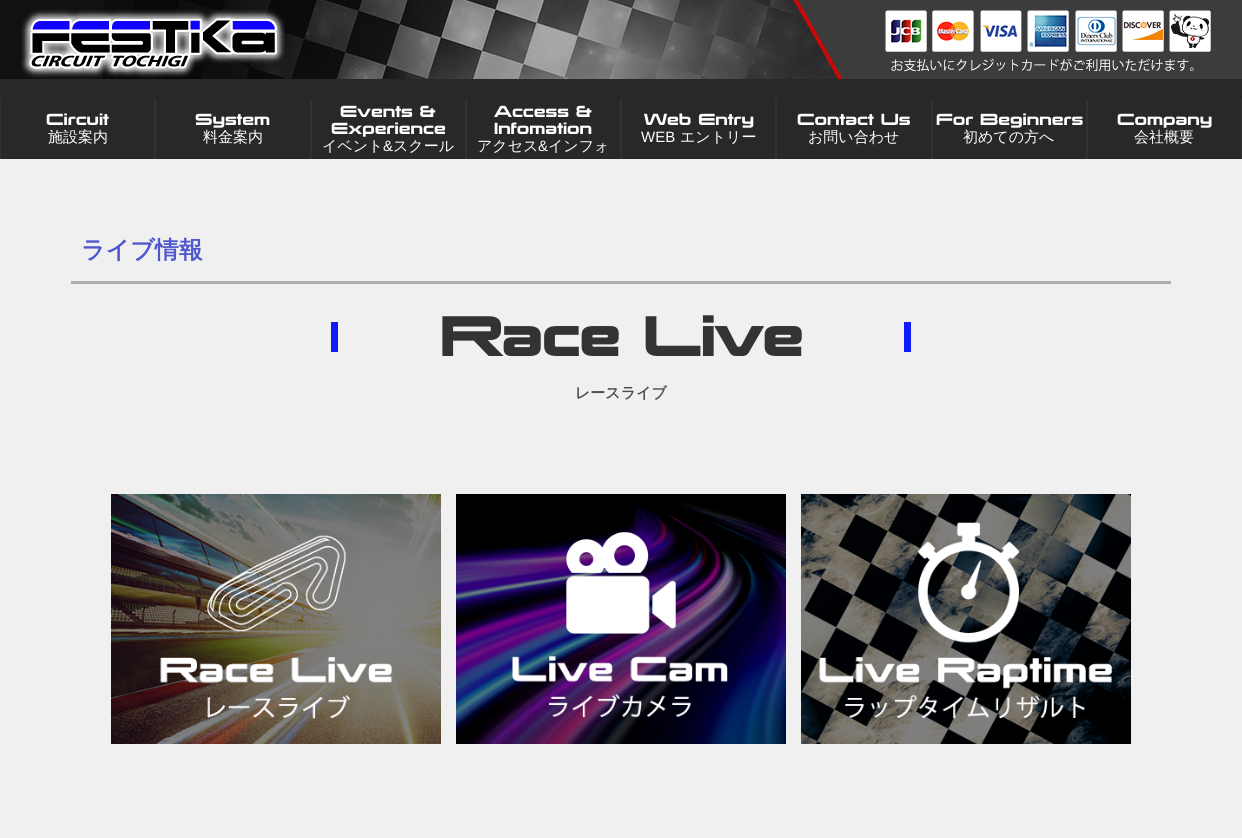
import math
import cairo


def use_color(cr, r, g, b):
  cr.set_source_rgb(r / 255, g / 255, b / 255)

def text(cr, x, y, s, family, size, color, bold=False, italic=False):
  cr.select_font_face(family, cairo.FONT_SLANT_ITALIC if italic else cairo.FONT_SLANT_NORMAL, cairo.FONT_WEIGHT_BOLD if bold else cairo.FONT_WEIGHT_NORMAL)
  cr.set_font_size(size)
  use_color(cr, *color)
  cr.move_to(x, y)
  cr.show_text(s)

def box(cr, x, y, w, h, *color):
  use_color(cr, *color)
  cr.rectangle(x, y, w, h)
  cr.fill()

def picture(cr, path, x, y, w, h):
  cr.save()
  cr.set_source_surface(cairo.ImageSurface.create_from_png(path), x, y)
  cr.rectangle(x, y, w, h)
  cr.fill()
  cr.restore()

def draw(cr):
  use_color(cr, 240, 240, 240)
  cr.paint()
  box(cr, 0, 79, 1242, 80, 40, 40, 40)
  picture(cr, "img_01.png", 0, 0, 1242, 79)
  picture(cr, "img_02.png", 21, 9, 264, 69)
  box(cr, 154, 99, 2, 60, 50, 50, 50)
  box(cr, 0, 99, 1, 60, 50, 50, 50)
  box(cr, 310, 99, 2, 60, 50, 50, 50)
  box(cr, 465, 99, 2, 60, 50, 50, 50)
  box(cr, 620, 99, 2, 60, 50, 50, 50)
  box(cr, 775, 99, 2, 60, 50, 50, 50)
  box(cr, 931, 99, 2, 60, 50, 50, 50)
  box(cr, 1086, 99, 2, 60, 50, 50, 50)
  box(cr, 1241, 99, 1, 60, 50, 50, 50)
  box(cr, 71, 281, 1100, 3, 174, 174, 174)
  box(cr, 331, 322, 7, 30, 15, 28, 248)
  box(cr, 904, 322, 7, 30, 15, 28, 248)
  picture(cr, "img_03.png", 111, 494, 330, 250)
  picture(cr, "img_04.png", 456, 494, 330, 250)
  picture(cr, "img_05.png", 801, 494, 330, 250)
  text(cr, 46, 125, "Circuit", "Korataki", 14, (254, 254, 254))
  text(cr, 48, 142, "施設案内", "WenQuanYi Zen Hei Medium", 15, (254, 254, 254))
  text(cr, 195, 125, "System", "Korataki", 14, (254, 254, 254))
  text(cr, 203, 142, "料金案内", "WenQuanYi Zen Hei Medium", 15, (254, 254, 254))
  text(cr, 340, 117, "Events &", "Korataki", 14, (254, 254, 254))
  text(cr, 331, 134, "Experience", "Korataki", 14, (254, 254, 254))
  text(cr, 322, 151, "イベント", "WenQuanYi Zen Hei Medium", 15, (254, 254, 254))
  text(cr, 383, 151, "&", "Liberation Sans", 15, (254, 254, 254))
  text(cr, 393, 151, "スクール", "WenQuanYi Zen Hei Medium", 15, (254, 254, 254))
  text(cr, 494, 117, "Access &", "Korataki", 14, (254, 254, 254))
  text(cr, 494, 134, "Infomation", "Korataki", 14, (254, 254, 254))
  text(cr, 477, 151, "アクセス", "WenQuanYi Zen Hei Medium", 15, (254, 254, 254))
  text(cr, 538, 151, "&", "Liberation Sans", 15, (254, 254, 254))
  text(cr, 548, 151, "インフォ", "WenQuanYi Zen Hei Medium", 15, (254, 254, 254))
  text(cr, 644, 125, "Web Entry", "Korataki", 14, (254, 254, 254))
  text(cr, 641, 142, "WEB", "Liberation Sans", 15, (254, 254, 254))
  text(cr, 680, 142, "エントリー", "WenQuanYi Zen Hei Medium", 15, (254, 254, 254))
  text(cr, 797, 125, "Contact Us", "Korataki", 14, (254, 254, 254))
  text(cr, 808, 142, "お問い合わせ", "WenQuanYi Zen Hei Medium", 15, (254, 254, 254))
  text(cr, 936, 125, "For Beginners", "Korataki", 14, (254, 254, 254))
  text(cr, 963, 142, "初めての方へ", "WenQuanYi Zen Hei Medium", 15, (254, 254, 254))
  text(cr, 1117, 125, "Company", "Korataki", 14, (254, 254, 254))
  text(cr, 1134, 142, "会社概要", "WenQuanYi Zen Hei Medium", 15, (254, 254, 254))
  text(cr, 81, 258, "ライブ情報", "WenQuanYi Zen Hei", 24, (78, 87, 205), bold=True)
  text(cr, 440, 356, "Race Live", "Korataki", 48, (51, 51, 51), bold=True)
  text(cr, 575, 398, "レースライブ", "WenQuanYi Zen Hei", 15, (80, 80, 80), bold=True)


surface = cairo.ImageSurface(cairo.FORMAT_RGB24, 1242, 838)
cr = cairo.Context(surface)
options = cairo.FontOptions()
options.set_hint_metrics(cairo.HINT_METRICS_OFF)
options.set_hint_style(cairo.HINT_STYLE_NONE)
cr.set_font_options(options)
cr.set_miter_limit(4)
draw(cr)
surface.write_to_png("out.png")
